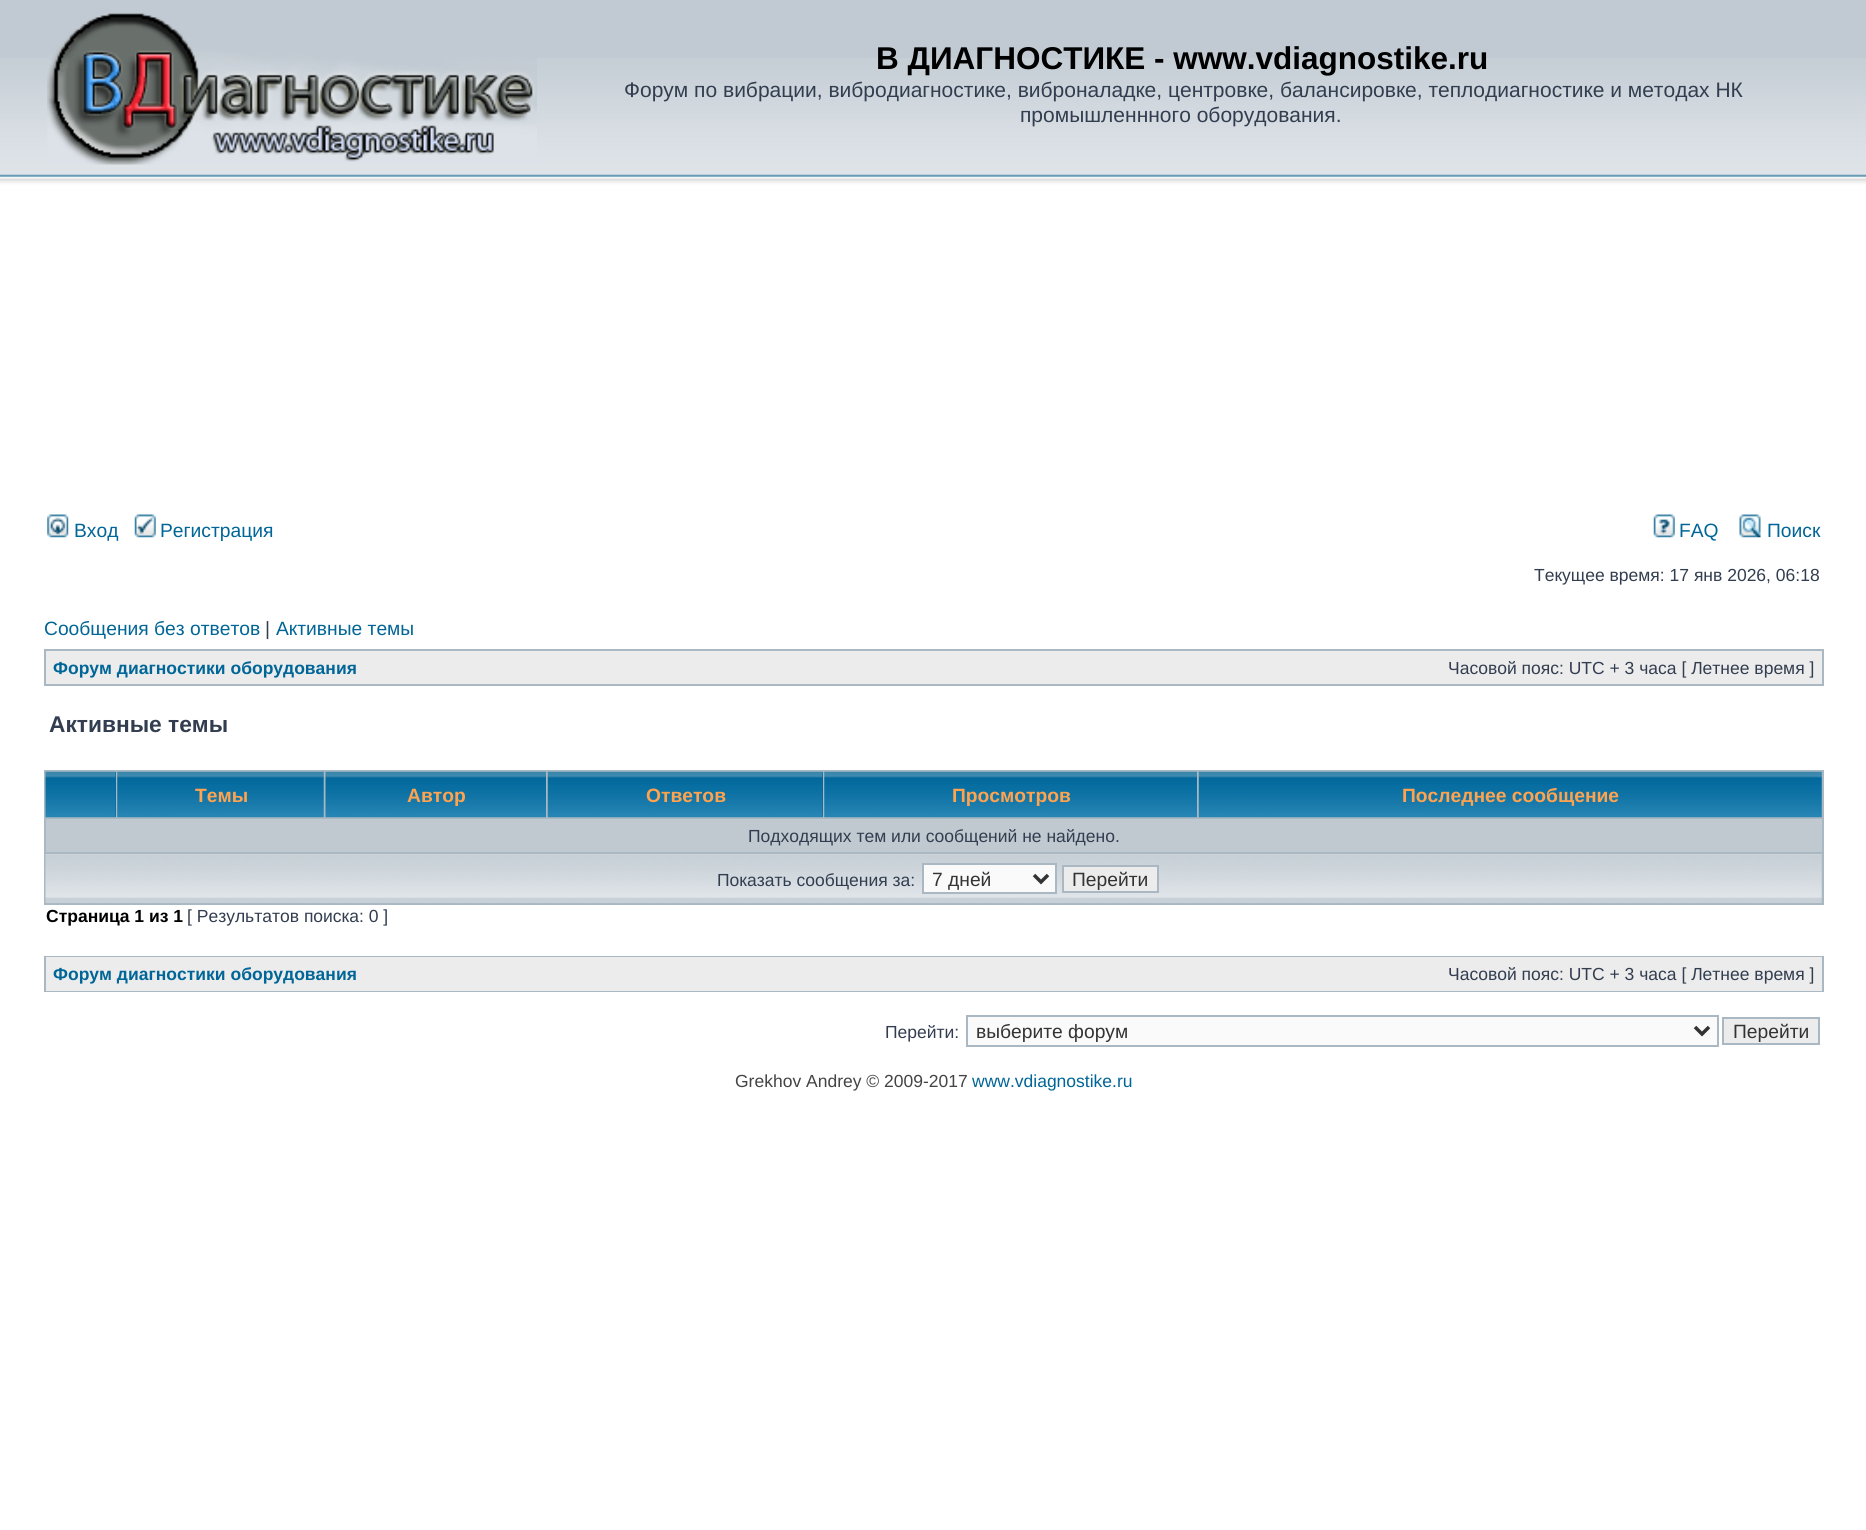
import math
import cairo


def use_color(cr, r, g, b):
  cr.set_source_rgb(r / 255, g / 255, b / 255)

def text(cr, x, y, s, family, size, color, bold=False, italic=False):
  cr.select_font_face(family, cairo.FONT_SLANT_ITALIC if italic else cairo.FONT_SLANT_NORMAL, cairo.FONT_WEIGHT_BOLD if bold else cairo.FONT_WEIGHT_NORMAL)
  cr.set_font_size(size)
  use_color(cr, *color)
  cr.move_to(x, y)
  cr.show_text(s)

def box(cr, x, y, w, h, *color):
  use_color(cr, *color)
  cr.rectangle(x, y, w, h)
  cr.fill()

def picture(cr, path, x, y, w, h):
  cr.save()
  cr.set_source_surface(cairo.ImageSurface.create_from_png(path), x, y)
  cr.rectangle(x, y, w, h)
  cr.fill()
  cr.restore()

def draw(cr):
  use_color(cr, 255, 255, 255)
  cr.paint()
  box(cr, 0, 0, 1866, 58, 193, 202, 210)
  picture(cr, "img_01.png", 0, 58, 1866, 136)
  picture(cr, "img_02.png", 47, 13, 490, 152)
  picture(cr, "img_03.png", 47, 514, 22, 24)
  picture(cr, "img_04.png", 134, 514, 22, 24)
  picture(cr, "img_05.png", 1653, 514, 22, 24)
  picture(cr, "img_06.png", 1739, 514, 22, 24)
  box(cr, 44, 649, 1780, 37, 169, 184, 194)
  box(cr, 46, 651, 1776, 33, 236, 236, 236)
  box(cr, 44, 770, 1780, 135, 169, 184, 194)
  box(cr, 115, 772, 1, 45, 0, 102, 153)
  picture(cr, "img_07.png", 45, 771, 71, 47)
  picture(cr, "img_08.png", 117, 771, 207, 47)
  picture(cr, "img_09.png", 325, 771, 221, 47)
  box(cr, 822, 772, 1, 45, 0, 102, 153)
  picture(cr, "img_10.png", 547, 771, 276, 47)
  picture(cr, "img_11.png", 824, 771, 373, 47)
  picture(cr, "img_12.png", 1198, 771, 624, 47)
  box(cr, 46, 819, 1776, 33, 192, 200, 208)
  picture(cr, "img_13.png", 45, 854, 1777, 49)
  use_color(cr, 250, 250, 250)
  cr.rectangle(923, 864, 133, 29)
  cr.fill_preserve()
  use_color(cr, 169, 184, 194)
  cr.stroke()
  cr.new_path()
  cr.move_to(1034, 875)
  cr.line_to(1041, 882)
  cr.line_to(1048, 875)
  use_color(cr, 51, 51, 51)
  cr.set_line_width(3.5)
  cr.stroke()
  use_color(cr, 236, 236, 236)
  cr.rectangle(1063, 866, 95, 26)
  cr.fill_preserve()
  use_color(cr, 169, 184, 194)
  cr.set_line_width(2)
  cr.stroke()
  box(cr, 44, 956, 1780, 36, 169, 184, 194)
  box(cr, 46, 957, 1776, 34, 236, 236, 236)
  use_color(cr, 250, 250, 250)
  cr.rectangle(967, 1016, 751, 30)
  cr.fill_preserve()
  use_color(cr, 169, 184, 194)
  cr.stroke()
  cr.new_path()
  cr.move_to(1695, 1027)
  cr.line_to(1702, 1034)
  cr.line_to(1709, 1027)
  use_color(cr, 51, 51, 51)
  cr.set_line_width(3.5)
  cr.stroke()
  use_color(cr, 236, 236, 236)
  cr.rectangle(1723, 1018, 96, 26)
  cr.fill_preserve()
  use_color(cr, 169, 184, 194)
  cr.set_line_width(2)
  cr.stroke()
  text(cr, 876, 69, "В ДИАГНОСТИКЕ - www.vdiagnostike.ru", "Liberation Sans", 31.5, (0, 0, 0), bold=True)
  text(cr, 624, 97, "Форум по вибрации, вибродиагностике, виброналадке, центровке, балансировке, теплодиагностике и методах НК", "Liberation Sans", 21, (50, 61, 79))
  text(cr, 1020, 122, "промышленнного оборудования.", "Liberation Sans", 21, (50, 61, 79))
  text(cr, 74, 537, "Вход", "Liberation Sans", 19.25, (0, 101, 151))
  text(cr, 160, 537, "Регистрация", "Liberation Sans", 19.25, (0, 101, 151))
  text(cr, 1679, 537, "FAQ", "Liberation Sans", 19.25, (0, 101, 151))
  text(cr, 1767, 537, "Поиск", "Liberation Sans", 19.25, (0, 101, 151))
  text(cr, 1534, 581, "Текущее время: 17 янв 2026, 06:18", "Liberation Sans", 17.5, (50, 61, 79))
  text(cr, 44, 635, "Сообщения без ответов", "Liberation Sans", 19.25, (0, 101, 151))
  text(cr, 265, 635, "|", "Liberation Sans", 19.25, (50, 61, 79))
  text(cr, 276, 635, "Активные темы", "Liberation Sans", 19.25, (0, 101, 151))
  text(cr, 53, 674, "Форум диагностики оборудования", "Liberation Sans", 17.5, (0, 101, 151), bold=True)
  text(cr, 1448, 674, "Часовой пояс: UTC + 3 часа [ Летнее время ]", "Liberation Sans", 17.5, (50, 61, 79))
  text(cr, 49, 732, "Активные темы", "Liberation Sans", 22.75, (50, 61, 79), bold=True)
  text(cr, 195, 802, "Темы", "Liberation Sans", 19.25, (255, 163, 79), bold=True)
  text(cr, 407, 802, "Автор", "Liberation Sans", 19.25, (255, 163, 79), bold=True)
  text(cr, 646, 802, "Ответов", "Liberation Sans", 19.25, (255, 163, 79), bold=True)
  text(cr, 952, 802, "Просмотров", "Liberation Sans", 19.25, (255, 163, 79), bold=True)
  text(cr, 1402, 802, "Последнее сообщение", "Liberation Sans", 19.25, (255, 163, 79), bold=True)
  text(cr, 748, 842, "Подходящих тем или сообщений не найдено.", "Liberation Sans", 17.5, (50, 61, 79))
  text(cr, 717, 886, "Показать сообщения за:", "Liberation Sans", 17.5, (50, 61, 79))
  text(cr, 932, 886, "7 дней", "Liberation Sans", 19.25, (51, 51, 51))
  text(cr, 1072, 886, "Перейти", "Liberation Sans", 19.25, (51, 51, 51))
  text(cr, 46, 922, "Страница 1 из 1", "Liberation Sans", 17.5, (0, 0, 0), bold=True)
  text(cr, 187, 922, "[ Результатов поиска: 0 ]", "Liberation Sans", 17.5, (50, 61, 79))
  text(cr, 53, 980, "Форум диагностики оборудования", "Liberation Sans", 17.5, (0, 101, 151), bold=True)
  text(cr, 1448, 980, "Часовой пояс: UTC + 3 часа [ Летнее время ]", "Liberation Sans", 17.5, (50, 61, 79))
  text(cr, 885, 1038, "Перейти:", "Liberation Sans", 17.5, (50, 61, 79))
  text(cr, 976, 1038, "выберите форум", "Liberation Sans", 19.25, (51, 51, 51))
  text(cr, 1733, 1038, "Перейти", "Liberation Sans", 19.25, (51, 51, 51))
  text(cr, 735, 1087, "Grekhov Andrey © 2009-2017", "Liberation Sans", 17.5, (68, 68, 68))
  text(cr, 972, 1087, "www.vdiagnostike.ru", "Liberation Sans", 17.5, (0, 101, 151))


surface = cairo.ImageSurface(cairo.FORMAT_RGB24, 1866, 1530)
cr = cairo.Context(surface)
options = cairo.FontOptions()
options.set_hint_metrics(cairo.HINT_METRICS_OFF)
options.set_hint_style(cairo.HINT_STYLE_NONE)
cr.set_font_options(options)
cr.set_miter_limit(4)
draw(cr)
surface.write_to_png("out.png")
